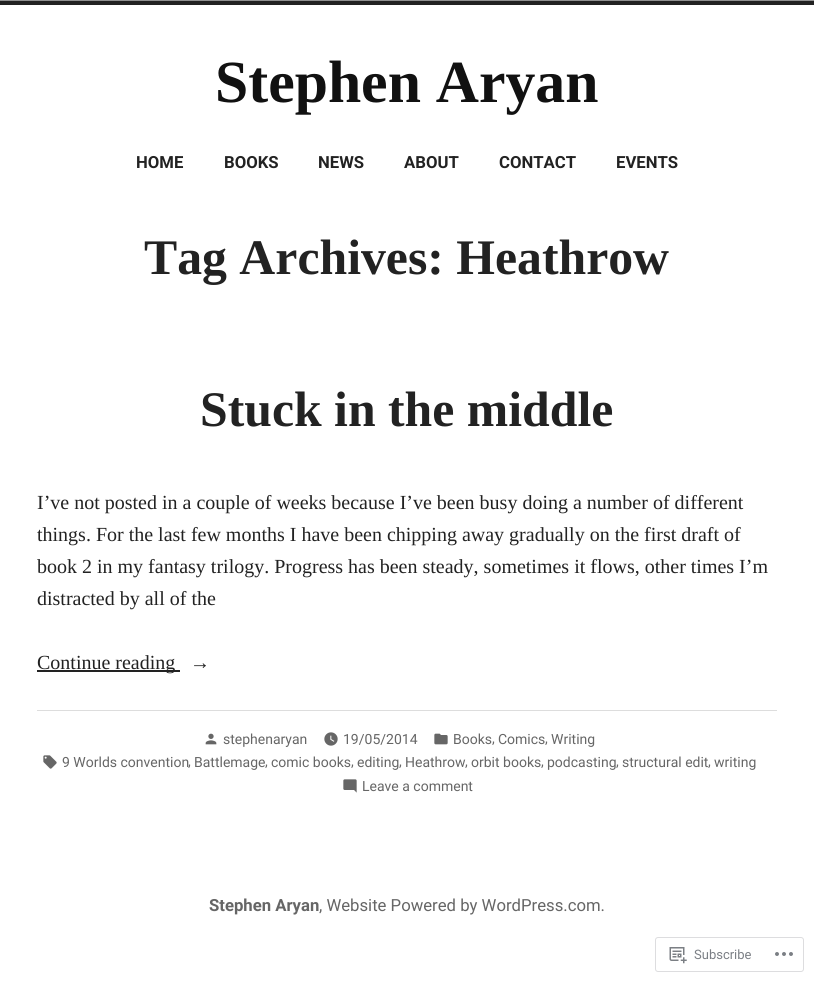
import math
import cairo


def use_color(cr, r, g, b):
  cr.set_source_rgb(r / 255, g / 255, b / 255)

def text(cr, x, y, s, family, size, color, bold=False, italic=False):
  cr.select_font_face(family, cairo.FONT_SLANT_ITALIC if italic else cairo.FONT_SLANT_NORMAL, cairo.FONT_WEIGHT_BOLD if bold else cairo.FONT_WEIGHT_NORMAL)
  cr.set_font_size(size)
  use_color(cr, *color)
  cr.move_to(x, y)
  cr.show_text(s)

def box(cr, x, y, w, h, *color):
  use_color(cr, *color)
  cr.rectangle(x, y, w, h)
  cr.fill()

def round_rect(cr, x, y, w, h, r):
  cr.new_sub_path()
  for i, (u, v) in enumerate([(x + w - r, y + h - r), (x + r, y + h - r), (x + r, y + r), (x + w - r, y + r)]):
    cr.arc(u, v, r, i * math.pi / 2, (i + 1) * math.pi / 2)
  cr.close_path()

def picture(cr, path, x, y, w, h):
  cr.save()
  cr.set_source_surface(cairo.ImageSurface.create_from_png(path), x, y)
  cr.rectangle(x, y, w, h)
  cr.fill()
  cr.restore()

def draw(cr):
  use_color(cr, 255, 255, 255)
  cr.paint()
  box(cr, 0, 1, 814, 4, 34, 34, 34)
  box(cr, 0, 0, 814, 1, 145, 145, 145)
  box(cr, 37, 670, 143, 2, 34, 34, 34)
  box(cr, 37, 710, 740, 1, 221, 221, 221)
  picture(cr, "img_01.png", 205, 733, 12, 12)
  picture(cr, "img_02.png", 324, 732, 14, 14)
  picture(cr, "img_03.png", 434, 733, 14, 12)
  picture(cr, "img_04.png", 43, 755, 14, 14)
  picture(cr, "img_05.png", 343, 779, 14, 14)
  round_rect(cr, 655.5, 937.5, 148, 34, 2.5)
  use_color(cr, 221, 221, 223)
  cr.set_line_width(1)
  cr.stroke()
  picture(cr, "img_06.png", 669, 947, 18, 17)
  picture(cr, "img_07.png", 775, 952, 18, 4)
  text(cr, 215, 102, "Stephen Aryan", "Liberation Serif", 59.75, (17, 17, 17), bold=True)
  text(cr, 136, 168, "HOME", "Roboto", 16.7, (34, 34, 34), bold=True)
  text(cr, 224, 168, "BOOKS", "Roboto", 16.7, (34, 34, 34), bold=True)
  text(cr, 318, 168, "NEWS", "Roboto", 16.7, (34, 34, 34), bold=True)
  text(cr, 404, 168, "ABOUT", "Roboto", 16.7, (34, 34, 34), bold=True)
  text(cr, 499, 168, "CONTACT", "Roboto", 16.7, (34, 34, 34), bold=True)
  text(cr, 616, 168, "EVENTS", "Roboto", 16.7, (34, 34, 34), bold=True)
  text(cr, 144, 274, "Tag Archives: Heathrow", "Liberation Serif", 49.75, (34, 34, 34), bold=True)
  text(cr, 200, 426, "Stuck in the middle", "Liberation Serif", 49.75, (34, 34, 34), bold=True)
  text(cr, 37, 509, "I’ve not posted in a couple of weeks because I’ve been busy doing a number of different", "Liberation Serif", 20, (34, 34, 34))
  text(cr, 37, 541, "things. For the last few months I have been chipping away gradually on the first draft of", "Liberation Serif", 20, (34, 34, 34))
  text(cr, 37, 573, "book 2 in my fantasy trilogy. Progress has been steady, sometimes it flows, other times I’m", "Liberation Serif", 20, (34, 34, 34))
  text(cr, 37, 605, "distracted by all of the", "Liberation Serif", 20, (34, 34, 34))
  text(cr, 37, 669, "Continue reading", "Liberation Serif", 20, (34, 34, 34))
  text(cr, 190, 669, "→", "Liberation Serif", 20, (34, 34, 34))
  text(cr, 223, 744, "stephenaryan", "Roboto", 14, (102, 102, 102))
  text(cr, 343, 744, "19/05/2014", "Roboto", 14, (102, 102, 102))
  text(cr, 453, 744, "Books", "Roboto", 14, (102, 102, 102))
  text(cr, 492, 743, ",", "Roboto", 14, (102, 102, 102))
  text(cr, 498, 744, "Comics", "Roboto", 14, (102, 102, 102))
  text(cr, 545, 743, ",", "Roboto", 14, (102, 102, 102))
  text(cr, 551, 744, "Writing", "Roboto", 14, (102, 102, 102))
  text(cr, 62, 767, "9 Worlds convention", "Roboto", 14, (102, 102, 102))
  text(cr, 188, 766, ",", "Roboto", 14, (102, 102, 102))
  text(cr, 194, 767, "Battlemage", "Roboto", 14, (102, 102, 102))
  text(cr, 265, 766, ",", "Roboto", 14, (102, 102, 102))
  text(cr, 271, 767, "comic books", "Roboto", 14, (102, 102, 102))
  text(cr, 351, 766, ",", "Roboto", 14, (102, 102, 102))
  text(cr, 357, 767, "editing", "Roboto", 14, (102, 102, 102))
  text(cr, 399, 766, ",", "Roboto", 14, (102, 102, 102))
  text(cr, 405, 767, "Heathrow", "Roboto", 14, (102, 102, 102))
  text(cr, 465, 766, ",", "Roboto", 14, (102, 102, 102))
  text(cr, 471, 767, "orbit books", "Roboto", 14, (102, 102, 102))
  text(cr, 541, 766, ",", "Roboto", 14, (102, 102, 102))
  text(cr, 547, 767, "podcasting", "Roboto", 14, (102, 102, 102))
  text(cr, 616, 766, ",", "Roboto", 14, (102, 102, 102))
  text(cr, 622, 767, "structural edit", "Roboto", 14, (102, 102, 102))
  text(cr, 708, 766, ",", "Roboto", 14, (102, 102, 102))
  text(cr, 714, 767, "writing", "Roboto", 14, (102, 102, 102))
  text(cr, 362, 791, "Leave a comment", "Roboto", 14, (102, 102, 102))
  text(cr, 209, 911, "Stephen Aryan", "Roboto", 16.7, (102, 102, 102), bold=True)
  text(cr, 319, 911, ", Website Powered by WordPress.com.", "Roboto", 16.7, (102, 102, 102))
  text(cr, 694, 959, "Subscribe", "Roboto", 13, (123, 127, 133))


surface = cairo.ImageSurface(cairo.FORMAT_RGB24, 814, 982)
cr = cairo.Context(surface)
options = cairo.FontOptions()
options.set_hint_metrics(cairo.HINT_METRICS_OFF)
options.set_hint_style(cairo.HINT_STYLE_NONE)
cr.set_font_options(options)
cr.set_miter_limit(4)
draw(cr)
surface.write_to_png("out.png")
